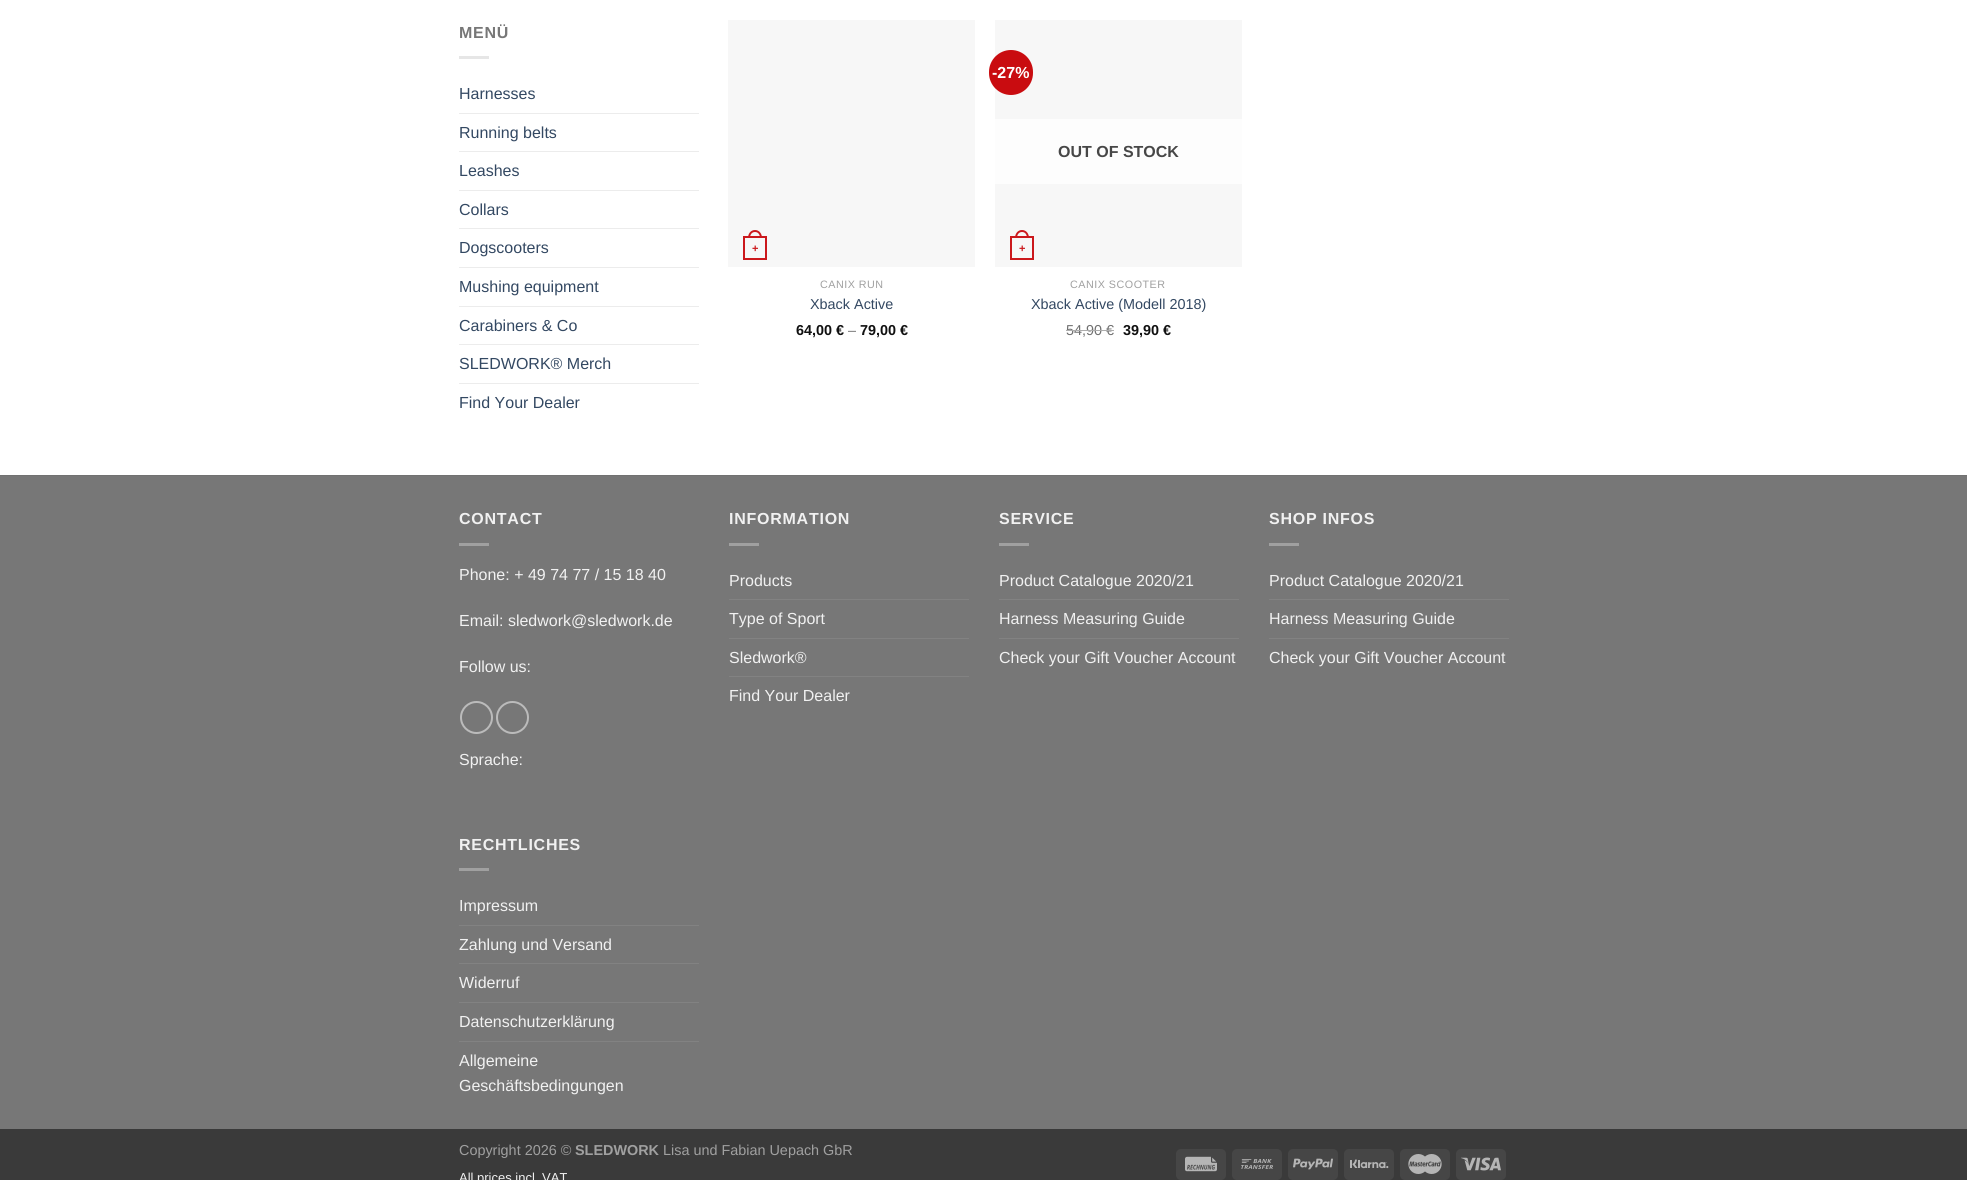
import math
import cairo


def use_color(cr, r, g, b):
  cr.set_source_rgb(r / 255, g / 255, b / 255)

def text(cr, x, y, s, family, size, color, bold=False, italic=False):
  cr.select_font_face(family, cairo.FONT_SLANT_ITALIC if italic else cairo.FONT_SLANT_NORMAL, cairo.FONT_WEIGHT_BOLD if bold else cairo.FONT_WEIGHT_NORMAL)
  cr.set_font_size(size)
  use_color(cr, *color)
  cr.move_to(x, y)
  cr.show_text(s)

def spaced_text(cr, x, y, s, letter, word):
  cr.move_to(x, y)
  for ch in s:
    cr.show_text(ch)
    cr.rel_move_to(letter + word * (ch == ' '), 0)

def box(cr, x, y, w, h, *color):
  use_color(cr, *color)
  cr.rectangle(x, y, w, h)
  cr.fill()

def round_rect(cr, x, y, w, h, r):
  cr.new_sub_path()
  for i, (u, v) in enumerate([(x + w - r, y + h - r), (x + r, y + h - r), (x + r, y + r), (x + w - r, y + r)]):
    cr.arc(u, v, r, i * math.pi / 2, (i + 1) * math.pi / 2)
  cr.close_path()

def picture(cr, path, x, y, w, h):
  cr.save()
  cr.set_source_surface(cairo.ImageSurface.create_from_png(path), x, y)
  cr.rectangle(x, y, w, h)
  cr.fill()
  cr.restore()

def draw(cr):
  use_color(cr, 255, 255, 255)
  cr.paint()
  box(cr, 459, 56, 30, 3, 230, 230, 230)
  box(cr, 459, 113, 240, 1, 236, 236, 236)
  box(cr, 459, 151, 240, 1, 236, 236, 236)
  box(cr, 459, 190, 240, 1, 236, 236, 236)
  box(cr, 459, 228, 240, 1, 236, 236, 236)
  box(cr, 459, 267, 240, 1, 236, 236, 236)
  box(cr, 459, 306, 240, 1, 236, 236, 236)
  box(cr, 459, 344, 240, 1, 236, 236, 236)
  box(cr, 459, 383, 240, 1, 236, 236, 236)
  box(cr, 728, 20, 247, 247, 247, 247, 247)
  cr.rectangle(744, 237, 22, 22)
  use_color(cr, 203, 24, 28)
  cr.stroke()
  cr.set_fill_rule(cairo.FILL_RULE_EVEN_ODD)
  cr.new_path()
  cr.move_to(755, 230)
  cr.curve_to(759.5, 230, 762, 234, 762, 238)
  cr.line_to(748, 238)
  cr.curve_to(748, 234, 750.5, 230, 755, 230)
  cr.close_path()
  cr.move_to(755, 232)
  cr.curve_to(758.5, 232, 760, 235, 760, 238)
  cr.line_to(750, 238)
  cr.curve_to(750, 235, 751.5, 232, 755, 232)
  cr.close_path()
  cr.fill()
  box(cr, 995, 20, 247, 247, 247, 247, 247)
  use_color(cr, 201, 12, 16)
  round_rect(cr, 989, 50, 44, 45, 22)
  cr.fill()
  box(cr, 995, 119, 247, 65, 253, 253, 253)
  cr.rectangle(1011, 237, 22, 22)
  use_color(cr, 203, 24, 28)
  cr.stroke()
  cr.new_path()
  cr.move_to(1022, 230)
  cr.curve_to(1026.5, 230, 1029, 234, 1029, 238)
  cr.line_to(1015, 238)
  cr.curve_to(1015, 234, 1017.5, 230, 1022, 230)
  cr.close_path()
  cr.move_to(1022, 232)
  cr.curve_to(1025.5, 232, 1027, 235, 1027, 238)
  cr.line_to(1017, 238)
  cr.curve_to(1017, 235, 1018.5, 232, 1022, 232)
  cr.close_path()
  cr.fill()
  box(cr, 0, 476, 1967, 653, 119, 119, 119)
  box(cr, 0, 475, 1967, 1, 113, 113, 113)
  box(cr, 459, 543, 30, 3, 160, 160, 160)
  cr.arc(476.5, 717.5, 15.5, 0, 2 * math.pi)
  use_color(cr, 187, 187, 187)
  cr.stroke()
  cr.arc(512.5, 717.5, 15.5, 0, 2 * math.pi)
  cr.stroke()
  box(cr, 729, 543, 30, 3, 160, 160, 160)
  box(cr, 729, 599, 240, 1, 130, 130, 130)
  box(cr, 729, 638, 240, 1, 130, 130, 130)
  box(cr, 729, 676, 240, 1, 130, 130, 130)
  box(cr, 999, 543, 30, 3, 160, 160, 160)
  box(cr, 999, 599, 240, 1, 130, 130, 130)
  box(cr, 999, 638, 240, 1, 130, 130, 130)
  box(cr, 1269, 543, 30, 3, 160, 160, 160)
  box(cr, 1269, 599, 240, 1, 130, 130, 130)
  box(cr, 1269, 638, 240, 1, 130, 130, 130)
  box(cr, 459, 868, 30, 3, 160, 160, 160)
  box(cr, 459, 925, 240, 1, 130, 130, 130)
  box(cr, 459, 963, 240, 1, 130, 130, 130)
  box(cr, 459, 1002, 240, 1, 130, 130, 130)
  box(cr, 459, 1041, 240, 1, 130, 130, 130)
  box(cr, 0, 1129, 1967, 51, 58, 58, 58)
  use_color(cr, 70, 70, 70)
  round_rect(cr, 1176, 1149, 50, 31, 5)
  cr.fill()
  picture(cr, "img_01.png", 1185, 1156, 32, 16)
  round_rect(cr, 1232, 1149, 50, 31, 5)
  cr.fill()
  picture(cr, "img_02.png", 1241, 1159, 32, 10)
  round_rect(cr, 1288, 1149, 50, 31, 5)
  cr.fill()
  picture(cr, "img_03.png", 1293, 1158, 40, 12)
  round_rect(cr, 1344, 1149, 50, 31, 5)
  cr.fill()
  picture(cr, "img_04.png", 1350, 1159, 39, 10)
  round_rect(cr, 1400, 1149, 50, 31, 5)
  cr.fill()
  picture(cr, "img_05.png", 1408, 1154, 34, 20)
  round_rect(cr, 1456, 1149, 50, 31, 5)
  cr.fill()
  picture(cr, "img_06.png", 1461, 1157, 40, 14)
  cr.select_font_face("Liberation Sans", cairo.FONT_SLANT_NORMAL, cairo.FONT_WEIGHT_BOLD)
  cr.set_font_size(16)
  use_color(cr, 119, 119, 119)
  spaced_text(cr, 459, 38, "MENÜ", 0.75, 0)
  text(cr, 459, 99, "Harnesses", "Liberation Sans", 16, (51, 72, 98))
  text(cr, 459, 138, "Running belts", "Liberation Sans", 16, (51, 72, 98))
  text(cr, 459, 176, "Leashes", "Liberation Sans", 16, (51, 72, 98))
  text(cr, 459, 215, "Collars", "Liberation Sans", 16, (51, 72, 98))
  text(cr, 459, 253, "Dogscooters", "Liberation Sans", 16, (51, 72, 98))
  text(cr, 459, 292, "Mushing equipment", "Liberation Sans", 16, (51, 72, 98))
  text(cr, 459, 331, "Carabiners & Co", "Liberation Sans", 16, (51, 72, 98))
  text(cr, 459, 369, "SLEDWORK® Merch", "Liberation Sans", 16, (51, 72, 98))
  text(cr, 459, 408, "Find Your Dealer", "Liberation Sans", 16, (51, 72, 98))
  text(cr, 752, 252, "+", "Liberation Sans", 11, (203, 24, 28), bold=True)
  cr.select_font_face("Liberation Sans")
  cr.set_font_size(10.75)
  use_color(cr, 160, 160, 160)
  spaced_text(cr, 820, 288, "CANIX RUN", 0.5, 0)
  text(cr, 810, 309, "Xback Active", "Liberation Sans", 14.4, (51, 72, 98))
  text(cr, 796, 335, "64,00 €", "Liberation Sans", 14.4, (17, 17, 17), bold=True)
  text(cr, 848, 335, "–", "Liberation Sans", 14.4, (119, 119, 119))
  text(cr, 860, 335, "79,00 €", "Liberation Sans", 14.4, (17, 17, 17), bold=True)
  text(cr, 992, 78, "-27%", "Liberation Sans", 16, (255, 255, 255), bold=True)
  text(cr, 1058, 157, "OUT OF STOCK", "Liberation Sans", 16, (71, 71, 71), bold=True)
  text(cr, 1019, 252, "+", "Liberation Sans", 11, (203, 24, 28), bold=True)
  cr.select_font_face("Liberation Sans")
  cr.set_font_size(10.75)
  use_color(cr, 160, 160, 160)
  spaced_text(cr, 1070, 288, "CANIX SCOOTER", 0.5, 0)
  text(cr, 1031, 309, "Xback Active (Modell 2018)", "Liberation Sans", 14.4, (51, 72, 98))
  text(cr, 1066, 335, "54,90 €", "Liberation Sans", 14.4, (112, 112, 112))
  box(cr, 1066, 330, 48, 1, 173, 173, 173)
  text(cr, 1123, 335, "39,90 €", "Liberation Sans", 14.4, (17, 17, 17), bold=True)
  cr.set_font_size(16)
  use_color(cr, 241, 241, 241)
  spaced_text(cr, 459, 524, "CONTACT", 0.75, 0)
  text(cr, 459, 580, "Phone: + 49 74 77 / 15 18 40", "Liberation Sans", 16, (241, 241, 241))
  text(cr, 459, 626, "Email: sledwork@sledwork.de", "Liberation Sans", 16, (241, 241, 241))
  text(cr, 459, 672, "Follow us:", "Liberation Sans", 16, (241, 241, 241))
  text(cr, 459, 765, "Sprache:", "Liberation Sans", 16, (241, 241, 241))
  cr.select_font_face("Liberation Sans", cairo.FONT_SLANT_NORMAL, cairo.FONT_WEIGHT_BOLD)
  spaced_text(cr, 729, 524, "INFORMATION", 0.75, 0)
  text(cr, 729, 586, "Products", "Liberation Sans", 16, (241, 241, 241))
  text(cr, 729, 624, "Type of Sport", "Liberation Sans", 16, (241, 241, 241))
  text(cr, 729, 663, "Sledwork®", "Liberation Sans", 16, (241, 241, 241))
  text(cr, 729, 701, "Find Your Dealer", "Liberation Sans", 16, (241, 241, 241))
  cr.select_font_face("Liberation Sans", cairo.FONT_SLANT_NORMAL, cairo.FONT_WEIGHT_BOLD)
  spaced_text(cr, 999, 524, "SERVICE", 0.75, 0)
  text(cr, 999, 586, "Product Catalogue 2020/21", "Liberation Sans", 16, (241, 241, 241))
  text(cr, 999, 624, "Harness Measuring Guide", "Liberation Sans", 16, (241, 241, 241))
  text(cr, 999, 663, "Check your Gift Voucher Account", "Liberation Sans", 16, (241, 241, 241))
  cr.select_font_face("Liberation Sans", cairo.FONT_SLANT_NORMAL, cairo.FONT_WEIGHT_BOLD)
  spaced_text(cr, 1269, 524, "SHOP INFOS", 0.75, 0)
  text(cr, 1269, 586, "Product Catalogue 2020/21", "Liberation Sans", 16, (241, 241, 241))
  text(cr, 1269, 624, "Harness Measuring Guide", "Liberation Sans", 16, (241, 241, 241))
  text(cr, 1269, 663, "Check your Gift Voucher Account", "Liberation Sans", 16, (241, 241, 241))
  cr.select_font_face("Liberation Sans", cairo.FONT_SLANT_NORMAL, cairo.FONT_WEIGHT_BOLD)
  spaced_text(cr, 459, 850, "RECHTLICHES", 0.75, 0)
  text(cr, 459, 911, "Impressum", "Liberation Sans", 16, (241, 241, 241))
  text(cr, 459, 950, "Zahlung und Versand", "Liberation Sans", 16, (241, 241, 241))
  text(cr, 459, 988, "Widerruf", "Liberation Sans", 16, (241, 241, 241))
  text(cr, 459, 1027, "Datenschutzerklärung", "Liberation Sans", 16, (241, 241, 241))
  text(cr, 459, 1066, "Allgemeine", "Liberation Sans", 16, (241, 241, 241))
  text(cr, 459, 1091, "Geschäftsbedingungen", "Liberation Sans", 16, (241, 241, 241))
  text(cr, 459, 1155, "Copyright 2026 ©", "Liberation Sans", 14.4, (160, 160, 160))
  text(cr, 575, 1155, "SLEDWORK", "Liberation Sans", 14.4, (160, 160, 160), bold=True)
  text(cr, 663, 1155, "Lisa und Fabian Uepach GbR", "Liberation Sans", 14.4, (160, 160, 160))
  text(cr, 459, 1182, "All prices incl. VAT", "Liberation Sans", 13, (241, 241, 241))


surface = cairo.ImageSurface(cairo.FORMAT_RGB24, 1967, 1180)
cr = cairo.Context(surface)
options = cairo.FontOptions()
options.set_hint_metrics(cairo.HINT_METRICS_OFF)
options.set_hint_style(cairo.HINT_STYLE_NONE)
cr.set_font_options(options)
cr.set_miter_limit(4)
draw(cr)
surface.write_to_png("out.png")
